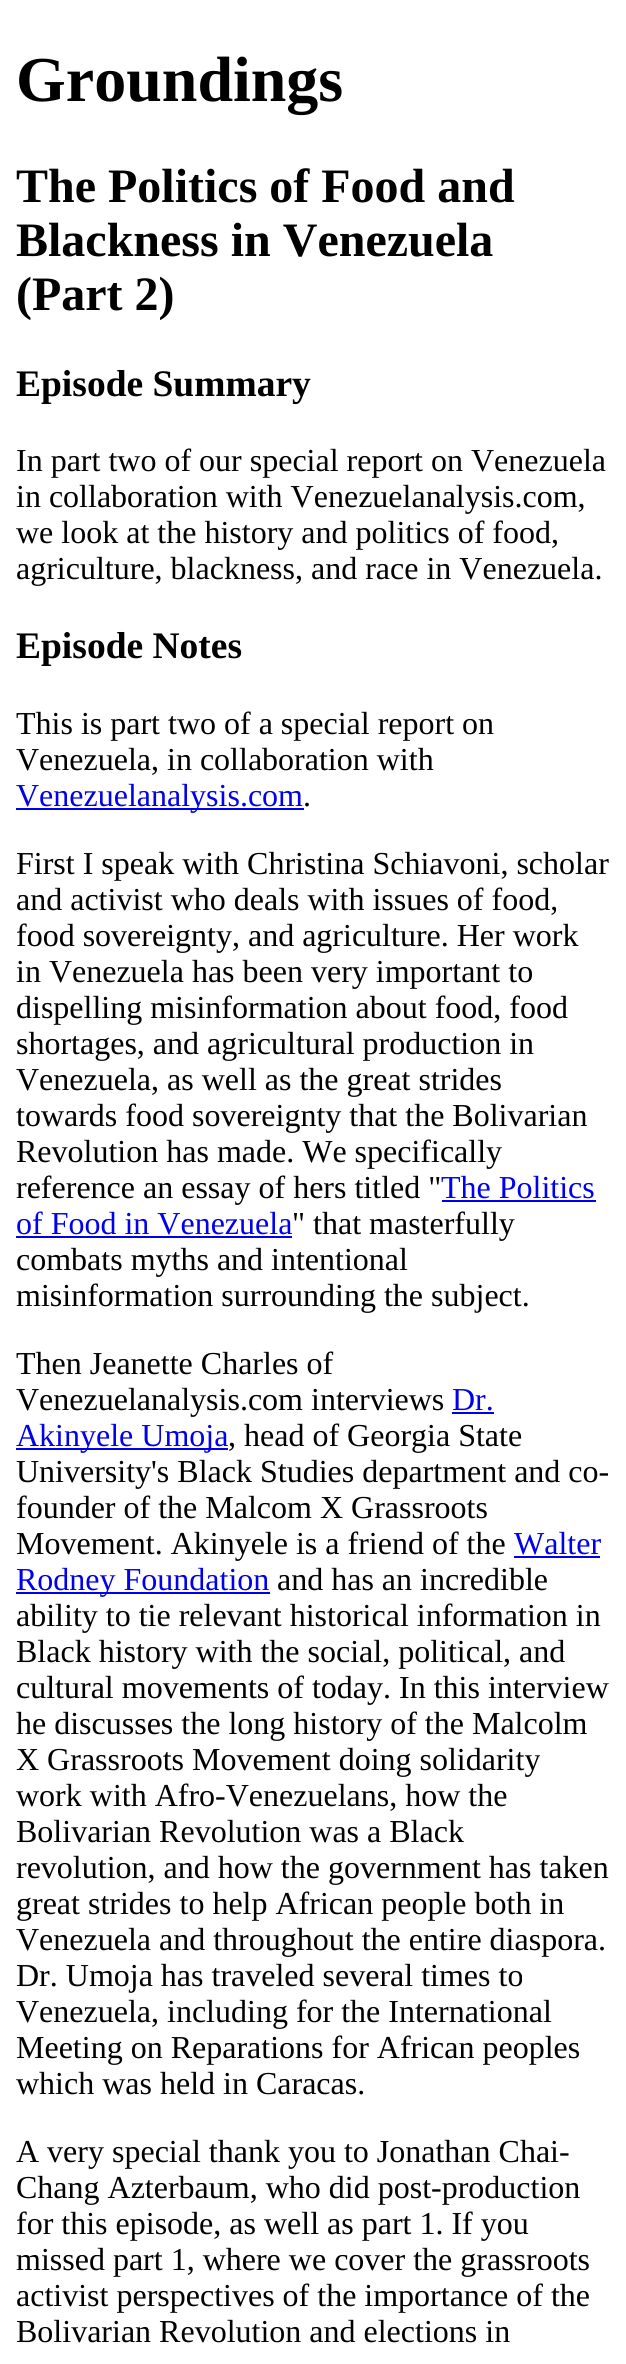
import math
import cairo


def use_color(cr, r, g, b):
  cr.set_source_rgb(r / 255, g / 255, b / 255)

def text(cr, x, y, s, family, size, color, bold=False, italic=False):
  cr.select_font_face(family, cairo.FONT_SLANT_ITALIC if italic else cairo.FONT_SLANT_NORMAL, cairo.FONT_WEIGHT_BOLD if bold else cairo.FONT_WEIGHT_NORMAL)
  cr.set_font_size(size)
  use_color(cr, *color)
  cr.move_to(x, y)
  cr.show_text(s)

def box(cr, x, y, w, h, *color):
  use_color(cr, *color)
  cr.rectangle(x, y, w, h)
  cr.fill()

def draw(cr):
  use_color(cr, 255, 255, 255)
  cr.paint()
  box(cr, 16, 808, 288, 2, 0, 0, 238)
  box(cr, 442, 1200, 154, 2, 0, 0, 238)
  box(cr, 16, 1236, 276, 2, 0, 0, 238)
  box(cr, 452, 1412, 42, 2, 0, 0, 238)
  box(cr, 16, 1448, 212, 2, 0, 0, 238)
  box(cr, 514, 1556, 86, 2, 0, 0, 238)
  box(cr, 16, 1592, 254, 2, 0, 0, 238)
  text(cr, 16, 101, "Groundings", "Liberation Serif", 64, (0, 0, 0), bold=True)
  text(cr, 16, 202, "The Politics of Food and", "Liberation Serif", 48, (0, 0, 0), bold=True)
  text(cr, 16, 256, "Blackness in Venezuela", "Liberation Serif", 48, (0, 0, 0), bold=True)
  text(cr, 16, 310, "(Part 2)", "Liberation Serif", 48, (0, 0, 0), bold=True)
  text(cr, 16, 396, "Episode Summary", "Liberation Serif", 37.5, (0, 0, 0), bold=True)
  text(cr, 16, 471, "In part two of our special report on Venezuela", "Liberation Serif", 32, (0, 0, 0))
  text(cr, 16, 507, "in collaboration with Venezuelanalysis.com,", "Liberation Serif", 32, (0, 0, 0))
  text(cr, 16, 543, "we look at the history and politics of food,", "Liberation Serif", 32, (0, 0, 0))
  text(cr, 16, 579, "agriculture, blackness, and race in Venezuela.", "Liberation Serif", 32, (0, 0, 0))
  text(cr, 16, 658, "Episode Notes", "Liberation Serif", 37.5, (0, 0, 0), bold=True)
  text(cr, 16, 734, "This is part two of a special report on", "Liberation Serif", 32, (0, 0, 0))
  text(cr, 16, 770, "Venezuela, in collaboration with", "Liberation Serif", 32, (0, 0, 0))
  text(cr, 16, 806, "Venezuelanalysis.com", "Liberation Serif", 32, (0, 0, 238))
  text(cr, 303, 806, ".", "Liberation Serif", 32, (0, 0, 0))
  text(cr, 16, 874, "First I speak with Christina Schiavoni, scholar", "Liberation Serif", 32, (0, 0, 0))
  text(cr, 16, 910, "and activist who deals with issues of food,", "Liberation Serif", 32, (0, 0, 0))
  text(cr, 16, 946, "food sovereignty, and agriculture. Her work", "Liberation Serif", 32, (0, 0, 0))
  text(cr, 16, 982, "in Venezuela has been very important to", "Liberation Serif", 32, (0, 0, 0))
  text(cr, 16, 1018, "dispelling misinformation about food, food", "Liberation Serif", 32, (0, 0, 0))
  text(cr, 16, 1054, "shortages, and agricultural production in", "Liberation Serif", 32, (0, 0, 0))
  text(cr, 16, 1090, "Venezuela, as well as the great strides", "Liberation Serif", 32, (0, 0, 0))
  text(cr, 16, 1126, "towards food sovereignty that the Bolivarian", "Liberation Serif", 32, (0, 0, 0))
  text(cr, 16, 1162, "Revolution has made. We specifically", "Liberation Serif", 32, (0, 0, 0))
  text(cr, 16, 1198, "reference an essay of hers titled \"", "Liberation Serif", 32, (0, 0, 0))
  text(cr, 441, 1198, "The Politics", "Liberation Serif", 32, (0, 0, 238))
  text(cr, 16, 1234, "of Food in Venezuela", "Liberation Serif", 32, (0, 0, 238))
  text(cr, 292, 1234, "\" that masterfully", "Liberation Serif", 32, (0, 0, 0))
  text(cr, 16, 1270, "combats myths and intentional", "Liberation Serif", 32, (0, 0, 0))
  text(cr, 16, 1306, "misinformation surrounding the subject.", "Liberation Serif", 32, (0, 0, 0))
  text(cr, 16, 1374, "Then Jeanette Charles of", "Liberation Serif", 32, (0, 0, 0))
  text(cr, 16, 1410, "Venezuelanalysis.com interviews", "Liberation Serif", 32, (0, 0, 0))
  text(cr, 452, 1410, "Dr.", "Liberation Serif", 32, (0, 0, 238))
  text(cr, 16, 1446, "Akinyele Umoja", "Liberation Serif", 32, (0, 0, 238))
  text(cr, 228, 1446, ", head of Georgia State", "Liberation Serif", 32, (0, 0, 0))
  text(cr, 16, 1482, "University's Black Studies department and co-", "Liberation Serif", 32, (0, 0, 0))
  text(cr, 16, 1518, "founder of the Malcom X Grassroots", "Liberation Serif", 32, (0, 0, 0))
  text(cr, 16, 1554, "Movement. Akinyele is a friend of the", "Liberation Serif", 32, (0, 0, 0))
  text(cr, 514, 1554, "Walter", "Liberation Serif", 32, (0, 0, 238))
  text(cr, 16, 1590, "Rodney Foundation", "Liberation Serif", 32, (0, 0, 238))
  text(cr, 277, 1590, "and has an incredible", "Liberation Serif", 32, (0, 0, 0))
  text(cr, 16, 1626, "ability to tie relevant historical information in", "Liberation Serif", 32, (0, 0, 0))
  text(cr, 16, 1662, "Black history with the social, political, and", "Liberation Serif", 32, (0, 0, 0))
  text(cr, 16, 1698, "cultural movements of today. In this interview", "Liberation Serif", 32, (0, 0, 0))
  text(cr, 16, 1734, "he discusses the long history of the Malcolm", "Liberation Serif", 32, (0, 0, 0))
  text(cr, 16, 1770, "X Grassroots Movement doing solidarity", "Liberation Serif", 32, (0, 0, 0))
  text(cr, 16, 1806, "work with Afro-Venezuelans, how the", "Liberation Serif", 32, (0, 0, 0))
  text(cr, 16, 1842, "Bolivarian Revolution was a Black", "Liberation Serif", 32, (0, 0, 0))
  text(cr, 16, 1878, "revolution, and how the government has taken", "Liberation Serif", 32, (0, 0, 0))
  text(cr, 16, 1914, "great strides to help African people both in", "Liberation Serif", 32, (0, 0, 0))
  text(cr, 16, 1950, "Venezuela and throughout the entire diaspora.", "Liberation Serif", 32, (0, 0, 0))
  text(cr, 16, 1986, "Dr. Umoja has traveled several times to", "Liberation Serif", 32, (0, 0, 0))
  text(cr, 16, 2022, "Venezuela, including for the International", "Liberation Serif", 32, (0, 0, 0))
  text(cr, 16, 2058, "Meeting on Reparations for African peoples", "Liberation Serif", 32, (0, 0, 0))
  text(cr, 16, 2094, "which was held in Caracas.", "Liberation Serif", 32, (0, 0, 0))
  text(cr, 16, 2162, "A very special thank you to Jonathan Chai-", "Liberation Serif", 32, (0, 0, 0))
  text(cr, 16, 2198, "Chang Azterbaum, who did post-production", "Liberation Serif", 32, (0, 0, 0))
  text(cr, 16, 2234, "for this episode, as well as part 1. If you", "Liberation Serif", 32, (0, 0, 0))
  text(cr, 16, 2270, "missed part 1, where we cover the grassroots", "Liberation Serif", 32, (0, 0, 0))
  text(cr, 16, 2306, "activist perspectives of the importance of the", "Liberation Serif", 32, (0, 0, 0))
  text(cr, 16, 2342, "Bolivarian Revolution and elections in", "Liberation Serif", 32, (0, 0, 0))


surface = cairo.ImageSurface(cairo.FORMAT_RGB24, 626, 2364)
cr = cairo.Context(surface)
options = cairo.FontOptions()
options.set_hint_metrics(cairo.HINT_METRICS_OFF)
options.set_hint_style(cairo.HINT_STYLE_NONE)
cr.set_font_options(options)
cr.set_miter_limit(4)
draw(cr)
surface.write_to_png("out.png")
